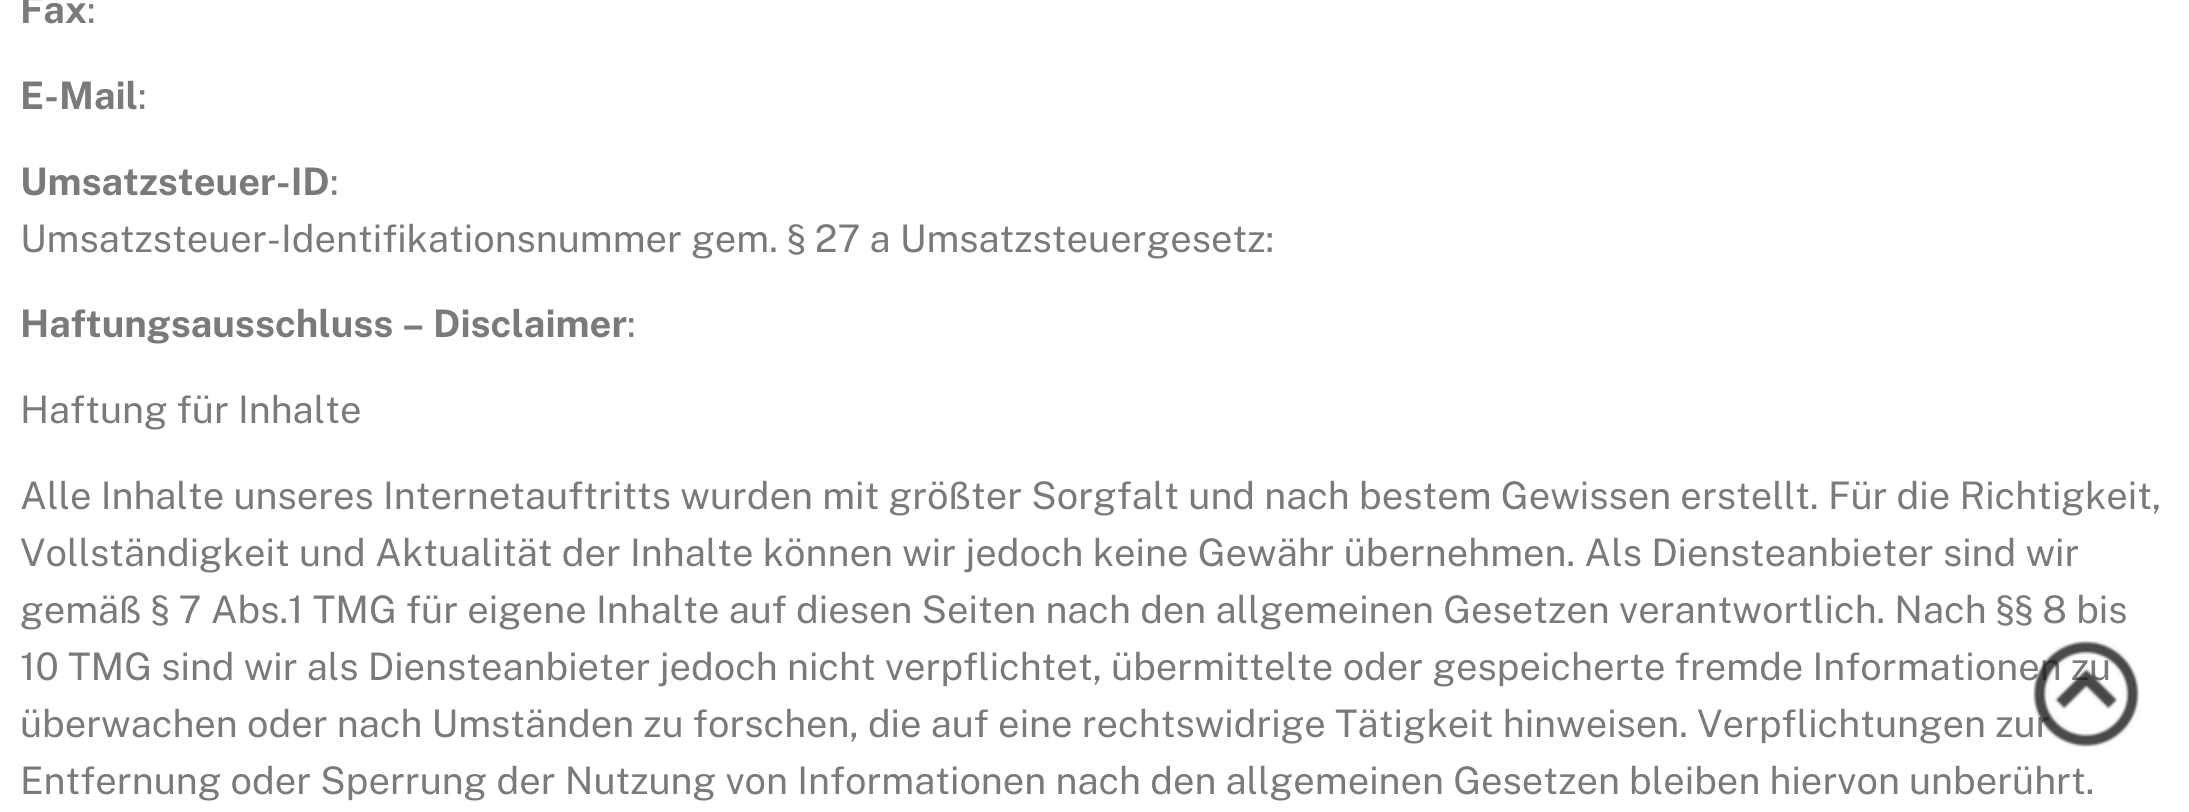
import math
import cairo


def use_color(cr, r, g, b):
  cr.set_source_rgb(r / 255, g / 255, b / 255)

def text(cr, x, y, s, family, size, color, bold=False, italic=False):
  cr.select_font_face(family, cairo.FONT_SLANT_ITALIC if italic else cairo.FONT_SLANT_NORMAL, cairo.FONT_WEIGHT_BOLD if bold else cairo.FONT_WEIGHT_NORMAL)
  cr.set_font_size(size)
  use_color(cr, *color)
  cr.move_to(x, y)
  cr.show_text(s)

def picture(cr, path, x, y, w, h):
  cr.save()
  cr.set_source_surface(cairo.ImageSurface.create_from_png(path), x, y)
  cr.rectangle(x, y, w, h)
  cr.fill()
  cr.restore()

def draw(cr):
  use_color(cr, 255, 255, 255)
  cr.paint()
  text(cr, 20, 23, "Fax", "Public Sans", 38, (122, 122, 122), bold=True)
  text(cr, 87, 23, ":", "Public Sans", 38, (122, 122, 122))
  text(cr, 20, 109, "E-Mail", "Public Sans", 38, (122, 122, 122), bold=True)
  text(cr, 138, 109, ":", "Public Sans", 38, (122, 122, 122))
  text(cr, 20, 195, "Umsatzsteuer-ID", "Public Sans", 38, (122, 122, 122), bold=True)
  text(cr, 330, 195, ":", "Public Sans", 38, (122, 122, 122))
  text(cr, 20, 252, "Umsatzsteuer-Identifikationsnummer gem. § 27 a Umsatzsteuergesetz:", "Public Sans", 38, (122, 122, 122))
  text(cr, 20, 337, "Haftungsausschluss – Disclaimer", "Public Sans", 38, (122, 122, 122), bold=True)
  text(cr, 627, 337, ":", "Public Sans", 38, (122, 122, 122))
  text(cr, 20, 423, "Haftung für Inhalte", "Public Sans", 38, (122, 122, 122))
  text(cr, 20, 509, "Alle Inhalte unseres Internetauftritts wurden mit größter Sorgfalt und nach bestem Gewissen erstellt. Für die Richtigkeit,", "Public Sans", 38, (122, 122, 122))
  text(cr, 20, 566, "Vollständigkeit und Aktualität der Inhalte können wir jedoch keine Gewähr übernehmen. Als Diensteanbieter sind wir", "Public Sans", 38, (122, 122, 122))
  text(cr, 20, 623, "gemäß § 7 Abs.1 TMG für eigene Inhalte auf diesen Seiten nach den allgemeinen Gesetzen verantwortlich. Nach §§ 8 bis", "Public Sans", 38, (122, 122, 122))
  text(cr, 20, 680, "10 TMG sind wir als Diensteanbieter jedoch nicht verpflichtet, übermittelte oder gespeicherte fremde Informationen zu", "Public Sans", 38, (122, 122, 122))
  text(cr, 20, 737, "überwachen oder nach Umständen zu forschen, die auf eine rechtswidrige Tätigkeit hinweisen. Verpflichtungen zur", "Public Sans", 38, (122, 122, 122))
  text(cr, 20, 794, "Entfernung oder Sperrung der Nutzung von Informationen nach den allgemeinen Gesetzen bleiben hiervon unberührt.", "Public Sans", 38, (122, 122, 122))
  picture(cr, "img_01.png", 2033, 640, 107, 107)


surface = cairo.ImageSurface(cairo.FORMAT_RGB24, 2189, 812)
cr = cairo.Context(surface)
options = cairo.FontOptions()
options.set_hint_metrics(cairo.HINT_METRICS_OFF)
options.set_hint_style(cairo.HINT_STYLE_NONE)
cr.set_font_options(options)
cr.set_miter_limit(4)
draw(cr)
surface.write_to_png("out.png")
